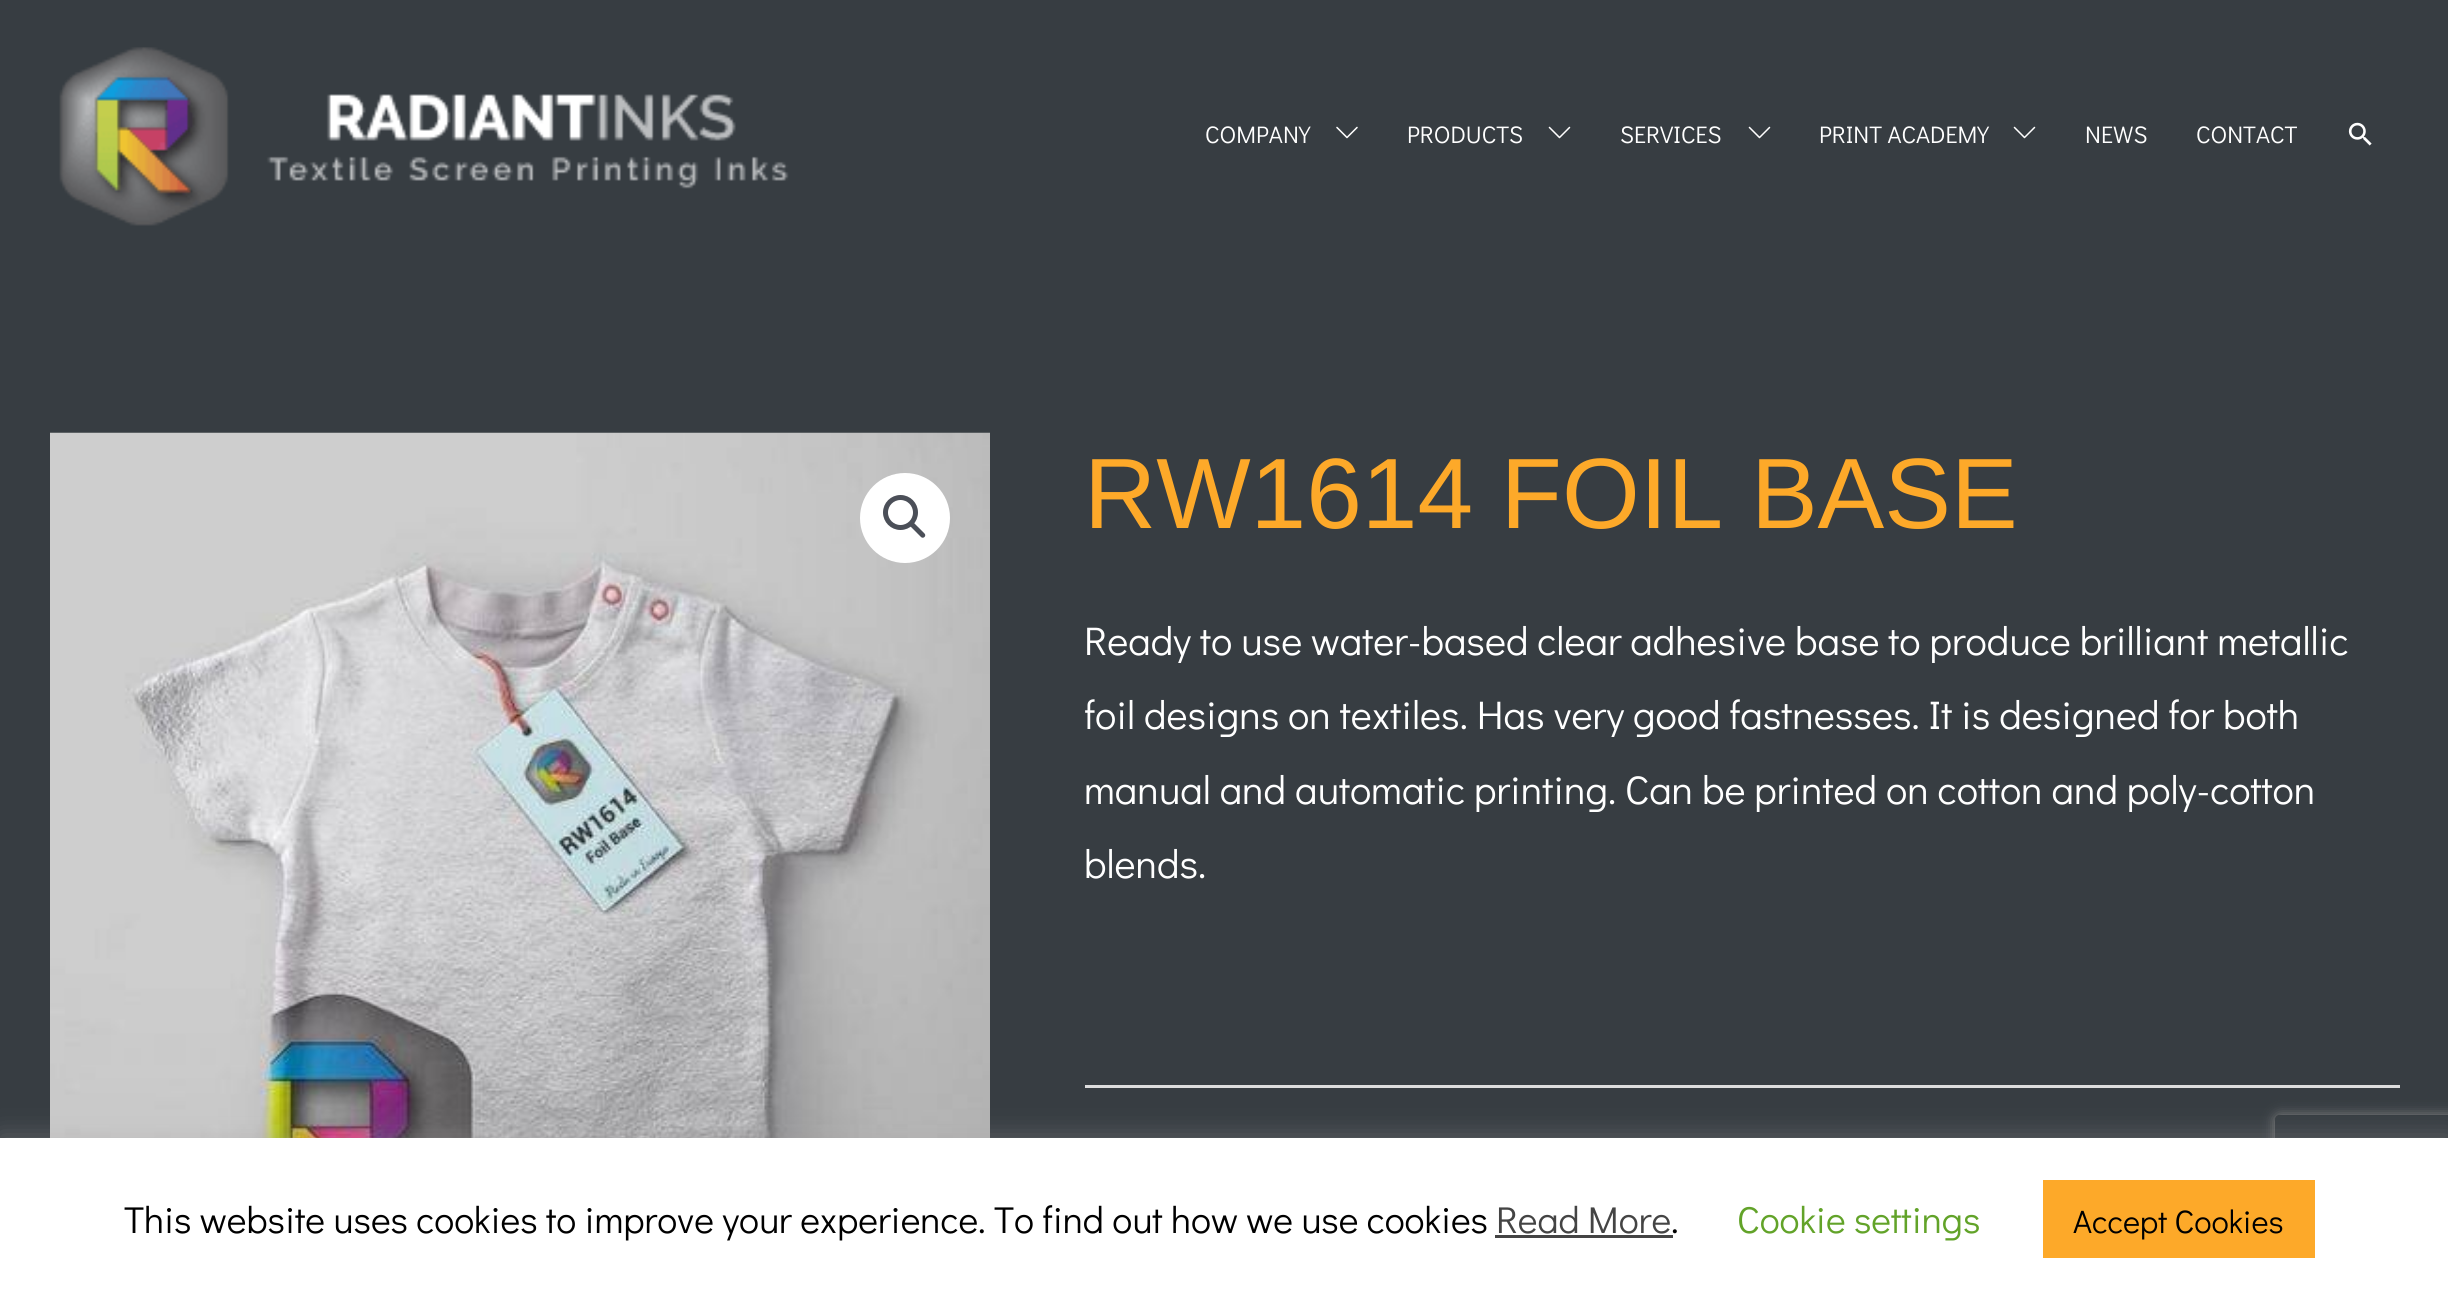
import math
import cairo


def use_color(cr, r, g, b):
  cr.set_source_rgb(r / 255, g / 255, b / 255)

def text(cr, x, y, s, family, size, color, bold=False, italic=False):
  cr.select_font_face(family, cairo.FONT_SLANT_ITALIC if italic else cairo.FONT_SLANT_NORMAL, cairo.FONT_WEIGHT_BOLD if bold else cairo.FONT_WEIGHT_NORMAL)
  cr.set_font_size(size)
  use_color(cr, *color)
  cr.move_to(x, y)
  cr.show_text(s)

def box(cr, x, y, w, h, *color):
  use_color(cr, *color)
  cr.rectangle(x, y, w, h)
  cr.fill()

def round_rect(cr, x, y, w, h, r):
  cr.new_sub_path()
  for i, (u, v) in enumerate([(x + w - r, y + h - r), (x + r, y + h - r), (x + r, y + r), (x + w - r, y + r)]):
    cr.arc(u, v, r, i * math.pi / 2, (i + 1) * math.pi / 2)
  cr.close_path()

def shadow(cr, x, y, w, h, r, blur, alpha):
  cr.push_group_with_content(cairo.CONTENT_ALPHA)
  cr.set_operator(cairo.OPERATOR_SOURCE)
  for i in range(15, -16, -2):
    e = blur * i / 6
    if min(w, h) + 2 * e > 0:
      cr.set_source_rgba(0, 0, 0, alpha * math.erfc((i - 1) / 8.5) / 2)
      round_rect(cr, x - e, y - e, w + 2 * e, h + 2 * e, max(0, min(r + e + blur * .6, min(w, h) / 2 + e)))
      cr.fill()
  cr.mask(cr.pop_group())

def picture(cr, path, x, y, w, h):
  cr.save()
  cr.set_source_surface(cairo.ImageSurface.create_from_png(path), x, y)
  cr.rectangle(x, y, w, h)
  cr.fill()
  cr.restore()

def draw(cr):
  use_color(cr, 55, 61, 66)
  cr.paint()
  picture(cr, "img_01.png", 59, 47, 730, 179)
  picture(cr, "img_02.png", 1336, 126, 22, 13)
  picture(cr, "img_03.png", 1548, 126, 23, 13)
  picture(cr, "img_03.png", 1748, 126, 23, 13)
  picture(cr, "img_03.png", 2013, 126, 23, 13)
  picture(cr, "img_04.png", 2348, 122, 24, 24)
  picture(cr, "img_05.png", 50, 432, 940, 706)
  use_color(cr, 255, 255, 255)
  cr.arc(905, 518, 45, 0, 2 * math.pi)
  cr.fill()
  cr.arc(900.5, 512.5, 15, 0, 2 * math.pi)
  use_color(cr, 75, 79, 88)
  cr.set_line_width(5)
  cr.stroke()
  cr.new_path()
  cr.move_to(910.5, 523)
  cr.curve_to(911.5, 522, 913, 522, 914, 523)
  cr.line_to(924.5, 533.5)
  cr.curve_to(925.5, 534.5, 925.5, 536, 924.5, 537)
  cr.curve_to(923.5, 538, 922, 538, 921, 537)
  cr.line_to(910.5, 526.5)
  cr.curve_to(909.5, 525.5, 909.5, 524, 910.5, 523)
  cr.close_path()
  cr.fill()
  box(cr, 1085, 1085, 1315, 3, 221, 221, 221)
  cr.save()
  cr.set_fill_rule(cairo.FILL_RULE_EVEN_ODD)
  cr.new_path()
  cr.move_to(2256, 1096)
  cr.line_to(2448, 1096)
  cr.line_to(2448, 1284)
  cr.line_to(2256, 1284)
  cr.close_path()
  cr.move_to(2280, 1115)
  cr.line_to(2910, 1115)
  cr.curve_to(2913, 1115, 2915, 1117, 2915, 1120)
  cr.line_to(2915, 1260)
  cr.curve_to(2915, 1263, 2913, 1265, 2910, 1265)
  cr.line_to(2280, 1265)
  cr.curve_to(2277, 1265, 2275, 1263, 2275, 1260)
  cr.line_to(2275, 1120)
  cr.curve_to(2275, 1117, 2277, 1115, 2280, 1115)
  cr.close_path()
  cr.clip()
  use_color(cr, 128, 128, 128)
  shadow(cr, 2275, 1115, 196, 150, 5, 6, 1)
  cr.restore()
  use_color(cr, 172, 171, 171)
  shadow(cr, 0, 1135, 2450, 163, 0, 12.5, 0.3)
  box(cr, 0, 1138, 2448, 161, 255, 255, 255)
  box(cr, 1495, 1235, 178, 3, 68, 68, 68)
  box(cr, 2043, 1180, 272, 78, 253, 169, 41)
  text(cr, 1205, 143, "COMPANY", "Didact Gothic", 24, (255, 255, 255))
  text(cr, 1407, 143, "PRODUCTS", "Didact Gothic", 24, (255, 255, 255))
  text(cr, 1620, 143, "SERVICES", "Didact Gothic", 24, (255, 255, 255))
  text(cr, 1819, 143, "PRINT ACADEMY", "Didact Gothic", 24, (255, 255, 255))
  text(cr, 2085, 143, "NEWS", "Didact Gothic", 24, (255, 255, 255))
  text(cr, 2196, 143, "CONTACT", "Didact Gothic", 24, (255, 255, 255))
  text(cr, 1084, 528, "RW1614 FOIL BASE", "Liberation Sans", 100, (253, 169, 41))
  text(cr, 1084, 655, "Ready to use water-based clear adhesive base to produce brilliant metallic", "Didact Gothic", 40, (255, 255, 255))
  text(cr, 1084, 729, "foil designs on textiles. Has very good fastnesses. It is designed for both", "Didact Gothic", 40, (255, 255, 255))
  text(cr, 1084, 804, "manual and automatic printing. Can be printed on cotton and poly-cotton", "Didact Gothic", 40, (255, 255, 255))
  text(cr, 1084, 878, "blends.", "Didact Gothic", 40, (255, 255, 255))
  text(cr, 124, 1233, "This website uses cookies to improve your experience. To find out how we use cookies", "Didact Gothic", 37.5, (0, 0, 0))
  text(cr, 1496, 1233, "Read More", "Didact Gothic", 37.5, (68, 68, 68))
  text(cr, 1671, 1233, ".", "Didact Gothic", 37.5, (0, 0, 0))
  text(cr, 1737, 1233, "Cookie settings", "Didact Gothic", 37.5, (98, 163, 41))
  text(cr, 2073, 1233, "Accept Cookies", "Didact Gothic", 32.5, (0, 0, 0))


surface = cairo.ImageSurface(cairo.FORMAT_RGB24, 2448, 1299)
cr = cairo.Context(surface)
options = cairo.FontOptions()
options.set_hint_metrics(cairo.HINT_METRICS_OFF)
options.set_hint_style(cairo.HINT_STYLE_NONE)
cr.set_font_options(options)
cr.set_miter_limit(4)
draw(cr)
surface.write_to_png("out.png")
